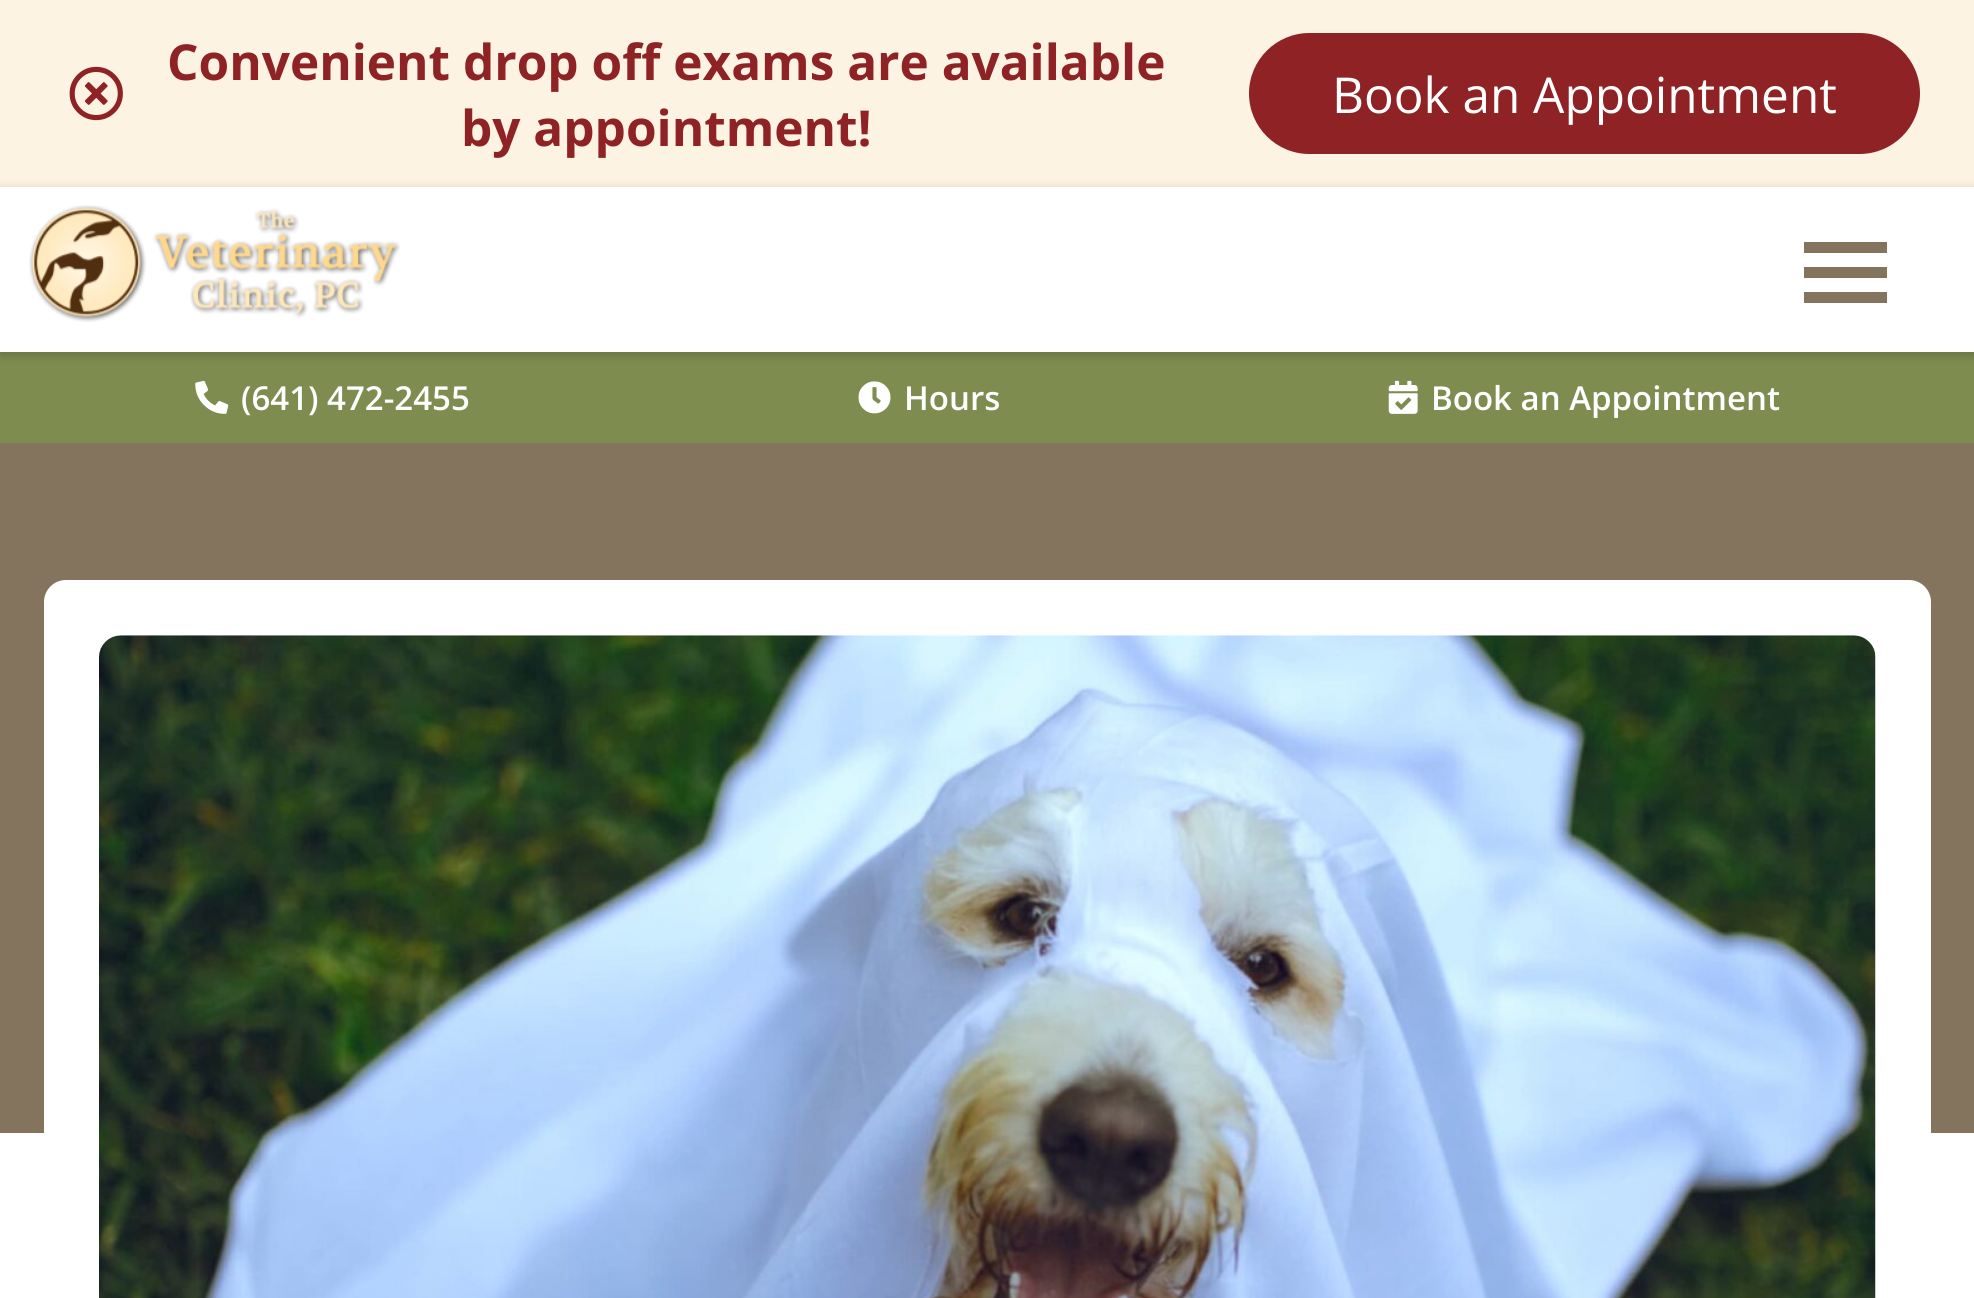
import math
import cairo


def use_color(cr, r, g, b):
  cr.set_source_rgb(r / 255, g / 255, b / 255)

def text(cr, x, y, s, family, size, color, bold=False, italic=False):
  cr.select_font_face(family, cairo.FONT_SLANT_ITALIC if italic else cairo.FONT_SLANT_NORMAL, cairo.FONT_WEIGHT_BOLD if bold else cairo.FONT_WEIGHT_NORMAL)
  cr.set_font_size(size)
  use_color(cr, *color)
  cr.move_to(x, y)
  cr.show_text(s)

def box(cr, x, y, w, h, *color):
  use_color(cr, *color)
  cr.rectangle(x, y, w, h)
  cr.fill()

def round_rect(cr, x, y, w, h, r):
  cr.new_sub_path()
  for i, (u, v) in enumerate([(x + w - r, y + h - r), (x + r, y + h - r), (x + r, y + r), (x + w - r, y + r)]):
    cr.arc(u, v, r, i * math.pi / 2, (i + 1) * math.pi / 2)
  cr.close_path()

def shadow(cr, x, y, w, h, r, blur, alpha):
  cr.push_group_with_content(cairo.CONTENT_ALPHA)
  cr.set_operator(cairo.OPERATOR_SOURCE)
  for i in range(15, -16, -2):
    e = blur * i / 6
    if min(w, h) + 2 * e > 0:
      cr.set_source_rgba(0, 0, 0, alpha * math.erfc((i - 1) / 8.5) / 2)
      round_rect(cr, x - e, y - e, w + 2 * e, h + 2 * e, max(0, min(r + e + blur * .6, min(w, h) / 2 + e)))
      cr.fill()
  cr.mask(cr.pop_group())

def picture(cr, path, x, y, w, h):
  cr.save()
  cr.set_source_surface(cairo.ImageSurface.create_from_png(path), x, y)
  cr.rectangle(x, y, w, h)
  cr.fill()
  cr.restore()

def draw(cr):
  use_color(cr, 255, 255, 255)
  cr.paint()
  box(cr, 0, 0, 1974, 187, 252, 243, 226)
  picture(cr, "img_01.png", 69, 66, 54, 55)
  use_color(cr, 142, 34, 36)
  round_rect(cr, 1249, 33, 671, 121, 60.5)
  cr.fill()
  box(cr, 0, 352, 1974, 91, 127, 140, 79)
  cr.save()
  cr.set_fill_rule(cairo.FILL_RULE_EVEN_ODD)
  cr.new_path()
  cr.move_to(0, 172)
  cr.line_to(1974, 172)
  cr.line_to(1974, 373)
  cr.line_to(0, 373)
  cr.close_path()
  cr.move_to(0, 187)
  cr.line_to(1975, 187)
  cr.line_to(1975, 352)
  cr.line_to(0, 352)
  cr.close_path()
  cr.clip()
  use_color(cr, 0, 0, 0)
  shadow(cr, 0, 190, 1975, 165, 0, 5.5, 0.2)
  cr.restore()
  picture(cr, "img_02.png", 29, 205, 371, 117)
  box(cr, 1804, 242, 83, 11, 132, 116, 93)
  box(cr, 1804, 267, 83, 11, 132, 116, 93)
  box(cr, 1804, 292, 83, 11, 132, 116, 93)
  picture(cr, "img_03.png", 195, 380, 34, 34)
  picture(cr, "img_04.png", 858, 381, 33, 33)
  picture(cr, "img_05.png", 1388, 380, 30, 34)
  box(cr, 0, 443, 1974, 690, 132, 116, 93)
  use_color(cr, 255, 255, 255)
  round_rect(cr, 44, 580, 1887, 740, 22)
  cr.fill()
  picture(cr, "img_06.png", 99, 635, 1777, 663)
  text(cr, 167, 80, "Convenient drop off exams are available", "Open Sans", 49.5, (142, 34, 36), bold=True)
  text(cr, 461, 146, "by appointment!", "Open Sans", 49.5, (142, 34, 36), bold=True)
  text(cr, 1332, 113, "Book an Appointment", "Open Sans", 49.5, (255, 255, 255))
  text(cr, 241, 410, "(641) 472-2455", "Open Sans SemiBold", 33, (255, 255, 255))
  text(cr, 904, 410, "Hours", "Open Sans SemiBold", 33, (255, 255, 255))
  text(cr, 1431, 410, "Book an Appointment", "Open Sans SemiBold", 33, (255, 255, 255))


surface = cairo.ImageSurface(cairo.FORMAT_RGB24, 1974, 1298)
cr = cairo.Context(surface)
options = cairo.FontOptions()
options.set_hint_metrics(cairo.HINT_METRICS_OFF)
options.set_hint_style(cairo.HINT_STYLE_NONE)
cr.set_font_options(options)
cr.set_miter_limit(4)
draw(cr)
surface.write_to_png("out.png")
